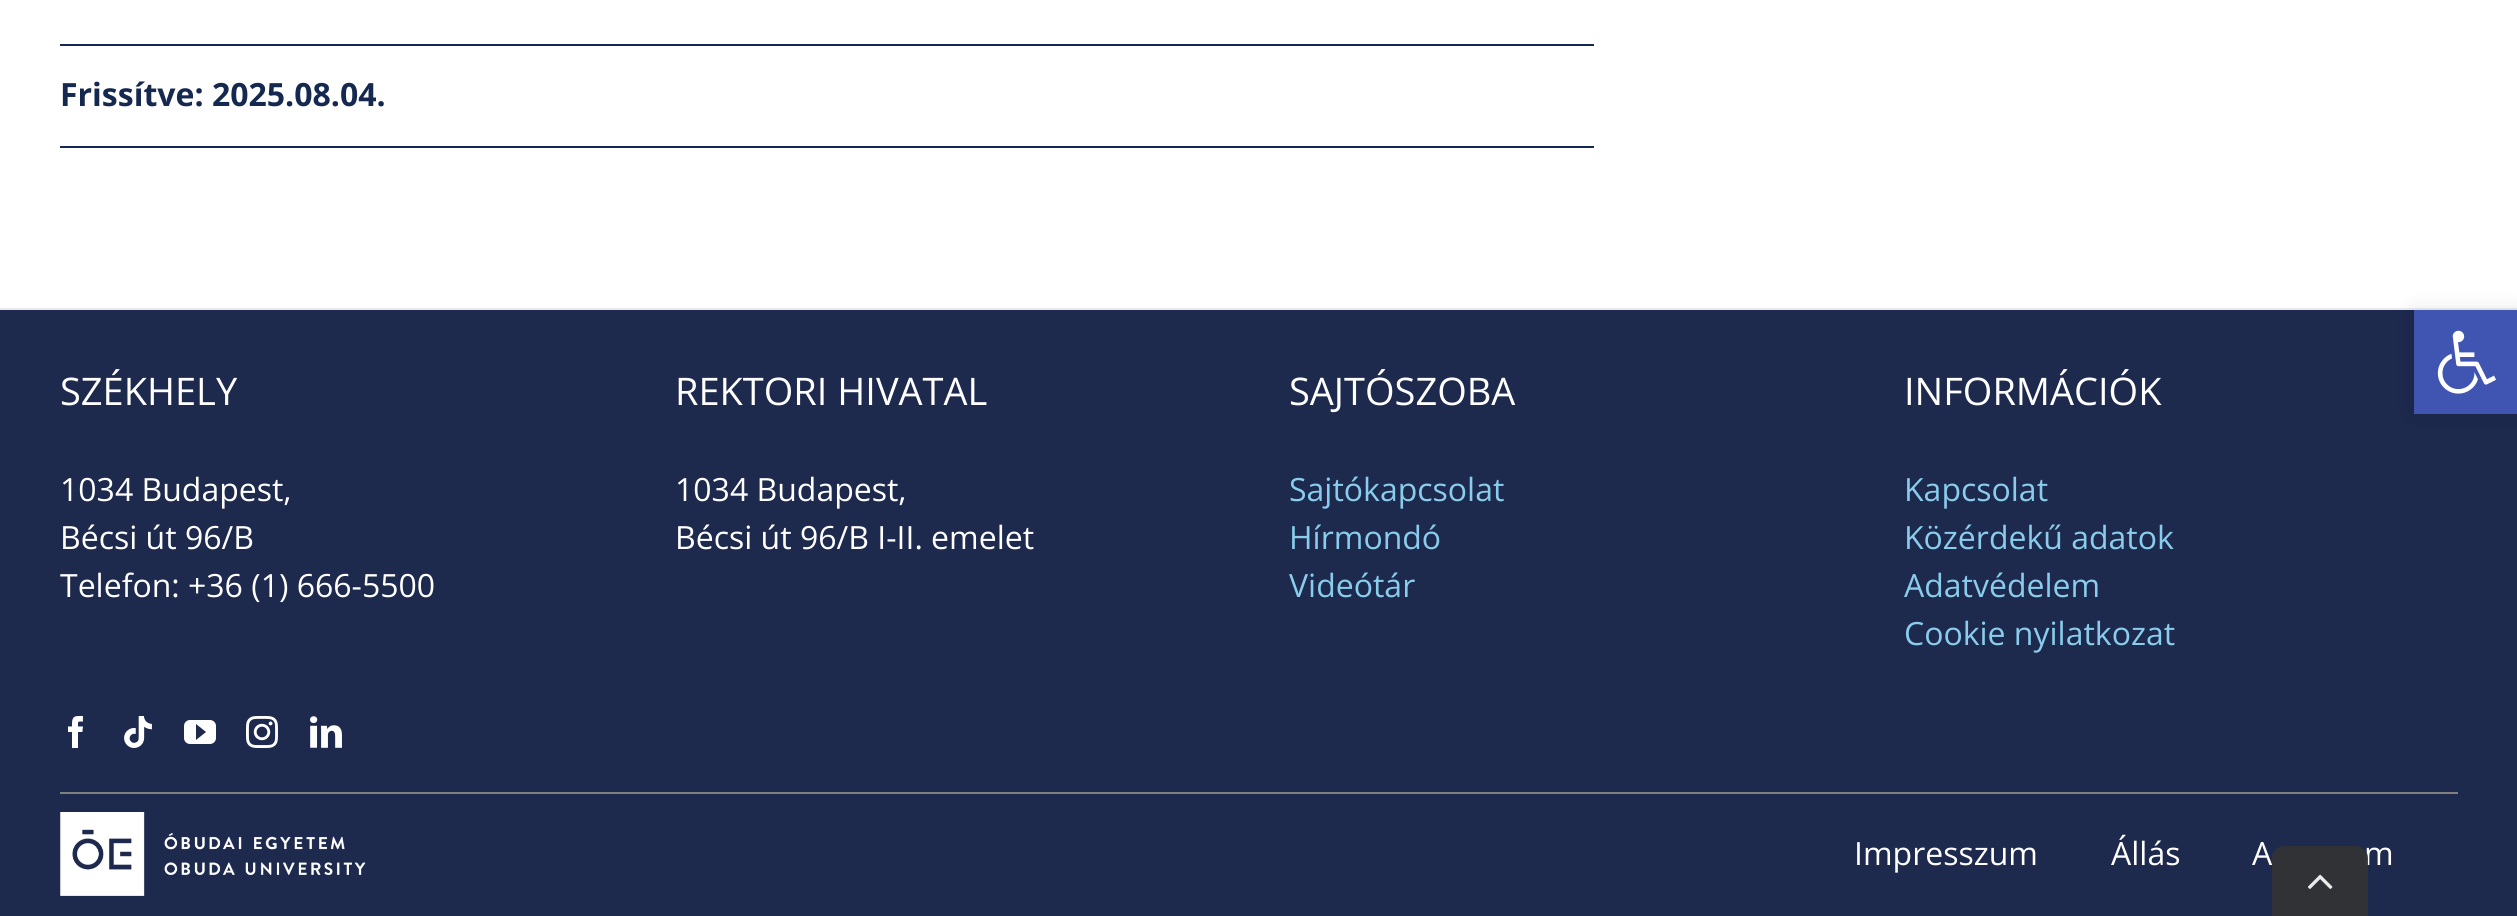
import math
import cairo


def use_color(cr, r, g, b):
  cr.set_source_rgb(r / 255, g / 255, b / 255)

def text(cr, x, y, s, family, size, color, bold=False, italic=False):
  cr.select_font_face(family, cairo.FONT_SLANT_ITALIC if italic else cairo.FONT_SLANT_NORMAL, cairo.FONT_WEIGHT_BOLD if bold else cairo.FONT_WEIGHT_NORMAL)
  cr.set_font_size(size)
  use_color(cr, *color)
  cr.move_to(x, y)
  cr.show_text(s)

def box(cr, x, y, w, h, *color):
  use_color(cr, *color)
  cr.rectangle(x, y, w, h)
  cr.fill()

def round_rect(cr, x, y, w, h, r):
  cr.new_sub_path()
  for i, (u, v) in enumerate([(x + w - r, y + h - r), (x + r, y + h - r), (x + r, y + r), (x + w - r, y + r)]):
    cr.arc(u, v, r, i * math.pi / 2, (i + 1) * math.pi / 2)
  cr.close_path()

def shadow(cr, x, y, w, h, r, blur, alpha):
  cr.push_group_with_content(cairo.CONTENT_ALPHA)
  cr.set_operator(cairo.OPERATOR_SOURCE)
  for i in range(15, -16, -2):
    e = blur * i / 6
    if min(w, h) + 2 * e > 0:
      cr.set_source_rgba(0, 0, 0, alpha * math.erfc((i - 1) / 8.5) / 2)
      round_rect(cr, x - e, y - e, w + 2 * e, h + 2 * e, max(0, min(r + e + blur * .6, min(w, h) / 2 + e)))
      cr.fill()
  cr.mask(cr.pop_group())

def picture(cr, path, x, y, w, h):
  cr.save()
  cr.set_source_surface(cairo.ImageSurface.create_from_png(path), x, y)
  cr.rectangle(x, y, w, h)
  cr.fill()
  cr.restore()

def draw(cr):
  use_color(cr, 255, 255, 255)
  cr.paint()
  box(cr, 60, 44, 1534, 2, 21, 41, 80)
  box(cr, 60, 146, 1534, 2, 21, 41, 80)
  box(cr, 0, 310, 2517, 606, 29, 41, 77)
  box(cr, 0, 308, 2517, 2, 233, 234, 238)
  picture(cr, "img_01.png", 68, 716, 15, 32)
  picture(cr, "img_02.png", 124, 716, 28, 32)
  picture(cr, "img_03.png", 184, 720, 32, 24)
  picture(cr, "img_04.png", 246, 716, 32, 32)
  picture(cr, "img_05.png", 310, 716, 32, 32)
  box(cr, 60, 792, 2398, 2, 128, 128, 128)
  picture(cr, "img_06.png", 60, 812, 306, 84)
  use_color(cr, 0, 0, 0)
  shadow(cr, 2414, 310, 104, 104, 0, 10, 0.1)
  box(cr, 2414, 310, 103, 104, 64, 84, 178)
  picture(cr, "img_07.png", 2437, 330, 59, 64)
  text(cr, 60, 106, "Frissítve: 2025.08.04.", "Open Sans", 32, (21, 41, 80), bold=True)
  text(cr, 60, 405, "SZÉKHELY", "Open Sans", 38, (255, 255, 255))
  text(cr, 60, 501, "1034 Budapest,", "Open Sans", 32, (255, 255, 255))
  text(cr, 60, 549, "Bécsi út 96/B", "Open Sans", 32, (255, 255, 255))
  text(cr, 60, 597, "Telefon: +36 (1) 666-5500", "Open Sans", 32, (255, 255, 255))
  text(cr, 675, 405, "REKTORI HIVATAL", "Open Sans", 38, (255, 255, 255))
  text(cr, 675, 501, "1034 Budapest,", "Open Sans", 32, (255, 255, 255))
  text(cr, 675, 549, "Bécsi út 96/B I-II. emelet", "Open Sans", 32, (255, 255, 255))
  text(cr, 1289, 405, "SAJTÓSZOBA", "Open Sans", 38, (255, 255, 255))
  text(cr, 1289, 501, "Sajtókapcsolat", "Open Sans", 32, (137, 204, 236))
  text(cr, 1289, 549, "Hírmondó", "Open Sans", 32, (137, 204, 236))
  text(cr, 1289, 597, "Videótár", "Open Sans", 32, (137, 204, 236))
  text(cr, 1904, 405, "INFORMÁCIÓK", "Open Sans", 38, (255, 255, 255))
  text(cr, 1904, 501, "Kapcsolat", "Open Sans", 32, (137, 204, 236))
  text(cr, 1904, 549, "Közérdekű adatok", "Open Sans", 32, (137, 204, 236))
  text(cr, 1904, 597, "Adatvédelem", "Open Sans", 32, (137, 204, 236))
  text(cr, 1904, 645, "Cookie nyilatkozat", "Open Sans", 32, (137, 204, 236))
  text(cr, 1854, 865, "Impresszum", "Open Sans", 32, (255, 255, 255))
  text(cr, 2111, 865, "Állás", "Open Sans", 32, (255, 255, 255))
  text(cr, 2252, 865, "A", "Open Sans", 32, (255, 255, 255))
  text(cr, 2364, 865, "m", "Open Sans", 32, (255, 255, 255))
  cr.set_source_rgba(0.2, 0.2, 0.2, 0.9)
  cr.new_path()
  cr.move_to(2284, 846)
  cr.line_to(2356, 846)
  cr.curve_to(2362.5, 846, 2368, 851.5, 2368, 858)
  cr.line_to(2368, 916)
  cr.line_to(2272, 916)
  cr.line_to(2272, 858)
  cr.curve_to(2272, 851.5, 2277.5, 846, 2284, 846)
  cr.close_path()
  cr.fill()
  picture(cr, "img_08.png", 2308, 874, 25, 15)


surface = cairo.ImageSurface(cairo.FORMAT_RGB24, 2517, 916)
cr = cairo.Context(surface)
options = cairo.FontOptions()
options.set_hint_metrics(cairo.HINT_METRICS_OFF)
options.set_hint_style(cairo.HINT_STYLE_NONE)
cr.set_font_options(options)
cr.set_miter_limit(4)
draw(cr)
surface.write_to_png("out.png")
